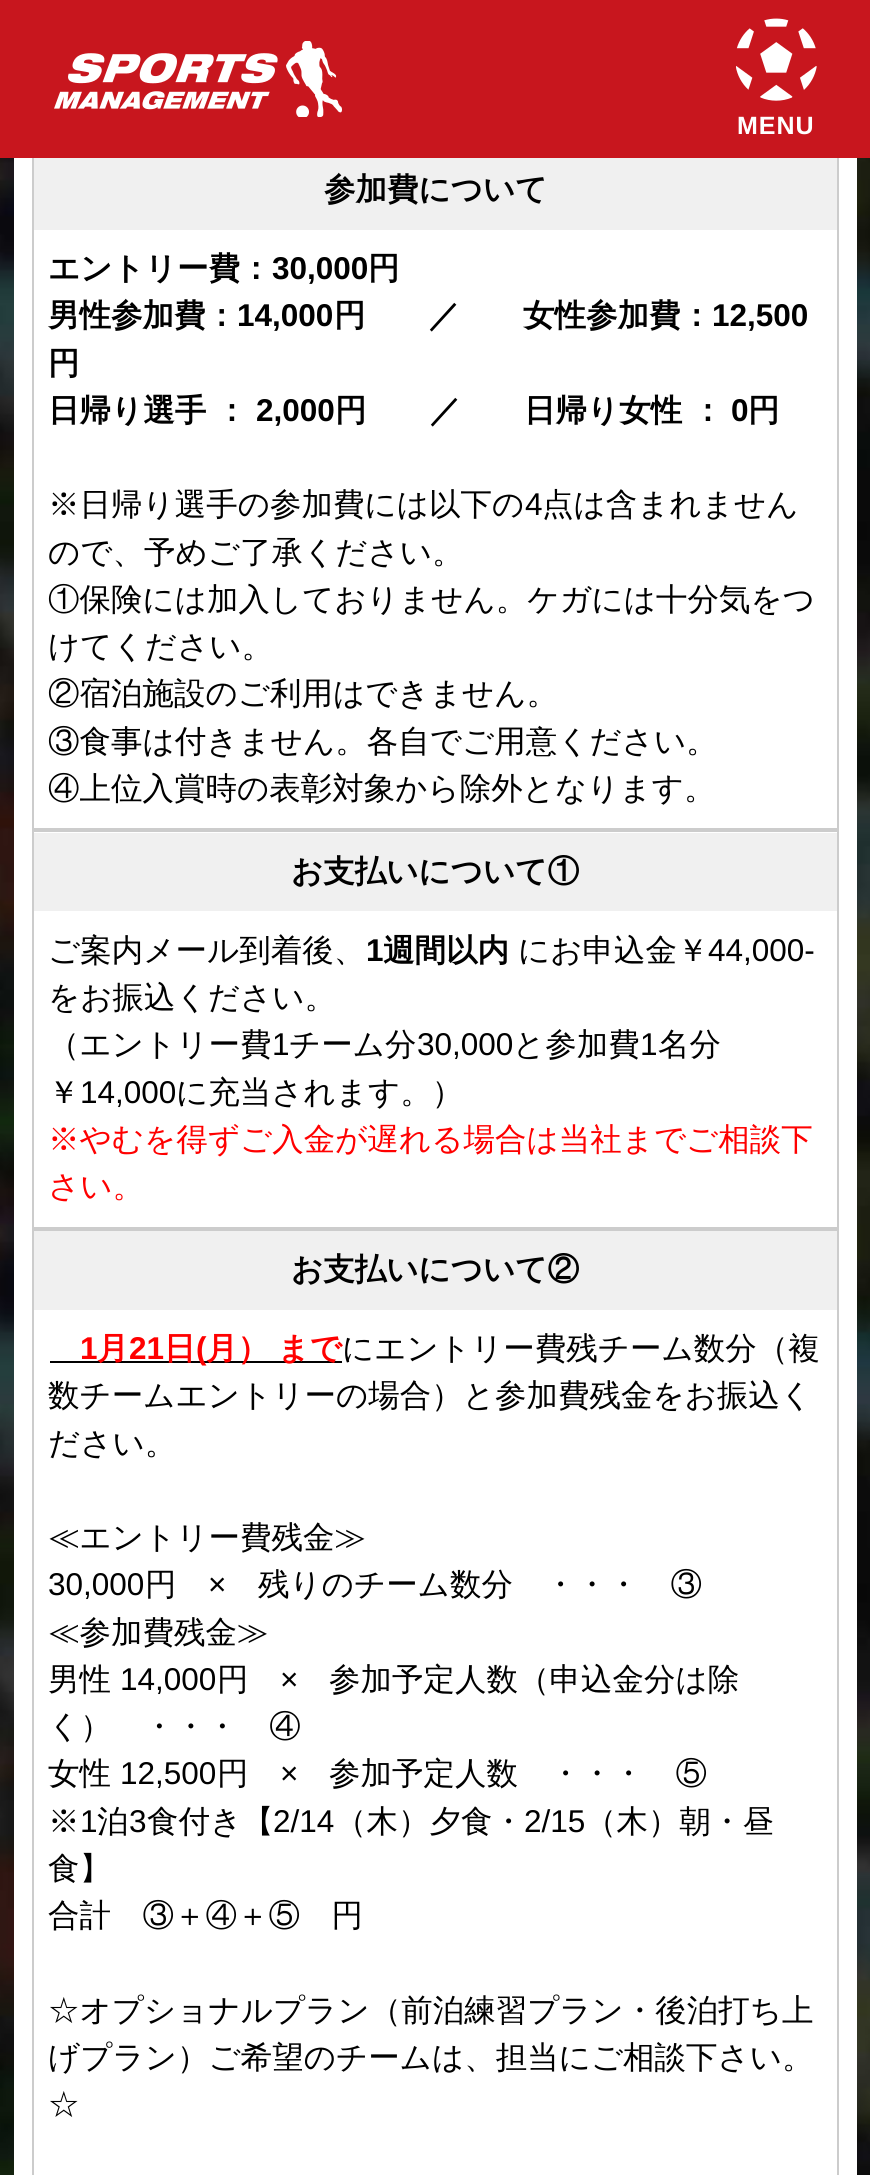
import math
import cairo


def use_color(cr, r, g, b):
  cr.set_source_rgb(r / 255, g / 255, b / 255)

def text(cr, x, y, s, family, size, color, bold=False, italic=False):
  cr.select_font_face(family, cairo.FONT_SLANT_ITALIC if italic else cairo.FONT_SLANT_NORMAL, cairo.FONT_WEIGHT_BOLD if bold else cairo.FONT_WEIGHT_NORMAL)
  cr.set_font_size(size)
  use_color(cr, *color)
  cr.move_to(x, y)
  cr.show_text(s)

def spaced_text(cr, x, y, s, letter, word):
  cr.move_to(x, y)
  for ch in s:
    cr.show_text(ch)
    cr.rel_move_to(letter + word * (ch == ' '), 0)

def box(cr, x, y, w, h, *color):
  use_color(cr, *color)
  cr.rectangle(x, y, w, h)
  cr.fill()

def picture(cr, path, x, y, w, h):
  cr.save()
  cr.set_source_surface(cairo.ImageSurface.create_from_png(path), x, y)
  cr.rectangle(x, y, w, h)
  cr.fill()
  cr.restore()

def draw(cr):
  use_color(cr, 255, 255, 255)
  cr.paint()
  picture(cr, "img_01.png", 0, 158, 870, 2017)
  box(cr, 14, 158, 843, 2017, 255, 255, 255)
  cr.rectangle(33, 150, 805, 679)
  use_color(cr, 204, 204, 204)
  cr.stroke()
  box(cr, 0, 0, 870, 158, 200, 22, 30)
  picture(cr, "img_02.png", 54, 41, 288, 76)
  picture(cr, "img_03.png", 736, 18, 81, 83)
  box(cr, 34, 158, 803, 72, 240, 240, 240)
  cr.rectangle(33, 831, 805, 397)
  use_color(cr, 204, 204, 204)
  cr.stroke()
  box(cr, 34, 833, 803, 78, 240, 240, 240)
  cr.rectangle(33, 1230, 805, 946)
  use_color(cr, 204, 204, 204)
  cr.stroke()
  box(cr, 34, 1231, 803, 79, 240, 240, 240)
  box(cr, 50, 1361, 292, 2, 0, 0, 0)
  cr.select_font_face("Liberation Sans", cairo.FONT_SLANT_NORMAL, cairo.FONT_WEIGHT_BOLD)
  cr.set_font_size(25)
  use_color(cr, 255, 255, 255)
  spaced_text(cr, 737, 134, "MENU", 1, 0)
  text(cr, 324, 200, "参加費について", "WenQuanYi Zen Hei", 31.5, (0, 0, 0), bold=True)
  text(cr, 48, 279, "エントリー費：", "WenQuanYi Zen Hei", 31.5, (0, 0, 0), bold=True)
  text(cr, 272, 279, "30,000", "Liberation Sans", 31.5, (0, 0, 0), bold=True)
  text(cr, 368, 279, "円", "WenQuanYi Zen Hei", 31.5, (0, 0, 0), bold=True)
  text(cr, 48, 326, "男性参加費：", "WenQuanYi Zen Hei", 31.5, (0, 0, 0), bold=True)
  text(cr, 237, 326, "14,000", "Liberation Sans", 31.5, (0, 0, 0), bold=True)
  text(cr, 334, 326, "円　　／　　女性参加費：", "WenQuanYi Zen Hei", 31.5, (0, 0, 0), bold=True)
  text(cr, 712, 326, "12,500", "Liberation Sans", 31.5, (0, 0, 0), bold=True)
  text(cr, 48, 374, "円", "WenQuanYi Zen Hei", 31.5, (0, 0, 0), bold=True)
  text(cr, 48, 421, "日帰り選手 ：", "WenQuanYi Zen Hei", 31.5, (0, 0, 0), bold=True)
  text(cr, 256, 421, "2,000", "Liberation Sans", 31.5, (0, 0, 0), bold=True)
  text(cr, 335, 421, "円　　／　　日帰り女性 ：", "WenQuanYi Zen Hei", 31.5, (0, 0, 0), bold=True)
  text(cr, 731, 421, "0", "Liberation Sans", 31.5, (0, 0, 0), bold=True)
  text(cr, 748, 421, "円", "WenQuanYi Zen Hei", 31.5, (0, 0, 0), bold=True)
  text(cr, 48, 515, "※日帰り選手の参加費には以下の", "WenQuanYi Zen Hei Medium", 31.5, (0, 0, 0))
  text(cr, 525, 515, "4", "Liberation Sans", 31.5, (0, 0, 0))
  text(cr, 542, 515, "点は含まれません", "WenQuanYi Zen Hei Medium", 31.5, (0, 0, 0))
  text(cr, 48, 563, "ので、予めご了承ください。", "WenQuanYi Zen Hei Medium", 31.5, (0, 0, 0))
  text(cr, 48, 610, "①保険には加入しておりません。ケガには十分気をつ", "WenQuanYi Zen Hei Medium", 31.5, (0, 0, 0))
  text(cr, 48, 657, "けてください。", "WenQuanYi Zen Hei Medium", 31.5, (0, 0, 0))
  text(cr, 48, 704, "②宿泊施設のご利用はできません。", "WenQuanYi Zen Hei Medium", 31.5, (0, 0, 0))
  text(cr, 48, 752, "③食事は付きません。各自でご用意ください。", "WenQuanYi Zen Hei Medium", 31.5, (0, 0, 0))
  text(cr, 48, 799, "④上位入賞時の表彰対象から除外となります。", "WenQuanYi Zen Hei Medium", 31.5, (0, 0, 0))
  text(cr, 291, 882, "お支払いについて①", "WenQuanYi Zen Hei", 31.5, (0, 0, 0), bold=True)
  text(cr, 48, 961, "ご案内メール到着後、", "WenQuanYi Zen Hei Medium", 31.5, (0, 0, 0))
  text(cr, 366, 961, "1", "Liberation Sans", 31.5, (0, 0, 0), bold=True)
  text(cr, 383, 961, "週間以内", "WenQuanYi Zen Hei", 31.5, (0, 0, 0), bold=True)
  text(cr, 518, 961, "にお申込金￥", "WenQuanYi Zen Hei Medium", 31.5, (0, 0, 0))
  text(cr, 708, 961, "44,000-", "Liberation Sans", 31.5, (0, 0, 0))
  text(cr, 48, 1008, "をお振込ください。", "WenQuanYi Zen Hei Medium", 31.5, (0, 0, 0))
  text(cr, 48, 1055, "（エントリー費", "WenQuanYi Zen Hei Medium", 31.5, (0, 0, 0))
  text(cr, 272, 1055, "1", "Liberation Sans", 31.5, (0, 0, 0))
  text(cr, 289, 1055, "チーム分", "WenQuanYi Zen Hei Medium", 31.5, (0, 0, 0))
  text(cr, 417, 1055, "30,000", "Liberation Sans", 31.5, (0, 0, 0))
  text(cr, 513, 1055, "と参加費", "WenQuanYi Zen Hei Medium", 31.5, (0, 0, 0))
  text(cr, 640, 1055, "1", "Liberation Sans", 31.5, (0, 0, 0))
  text(cr, 658, 1055, "名分", "WenQuanYi Zen Hei Medium", 31.5, (0, 0, 0))
  text(cr, 48, 1103, "￥", "WenQuanYi Zen Hei Medium", 31.5, (0, 0, 0))
  text(cr, 80, 1103, "14,000", "Liberation Sans", 31.5, (0, 0, 0))
  text(cr, 176, 1103, "に充当されます。）", "WenQuanYi Zen Hei Medium", 31.5, (0, 0, 0))
  text(cr, 48, 1150, "※やむを得ずご入金が遅れる場合は当社までご相談下", "WenQuanYi Zen Hei Medium", 31.5, (255, 0, 0))
  text(cr, 48, 1197, "さい。", "WenQuanYi Zen Hei Medium", 31.5, (255, 0, 0))
  text(cr, 291, 1280, "お支払いについて②", "WenQuanYi Zen Hei", 31.5, (0, 0, 0), bold=True)
  text(cr, 80, 1359, "1", "Liberation Sans", 31.5, (255, 0, 0), bold=True)
  text(cr, 97, 1359, "月", "WenQuanYi Zen Hei", 31.5, (255, 0, 0), bold=True)
  text(cr, 129, 1359, "21", "Liberation Sans", 31.5, (255, 0, 0), bold=True)
  text(cr, 164, 1359, "日", "WenQuanYi Zen Hei", 31.5, (255, 0, 0), bold=True)
  text(cr, 196, 1359, "(", "Liberation Sans", 31.5, (255, 0, 0), bold=True)
  cr.select_font_face("WenQuanYi Zen Hei", cairo.FONT_SLANT_NORMAL, cairo.FONT_WEIGHT_BOLD)
  spaced_text(cr, 206, 1359, "月） まで", 0, -1)
  text(cr, 342, 1359, "にエントリー費残チーム数分（複", "WenQuanYi Zen Hei Medium", 31.5, (0, 0, 0))
  text(cr, 48, 1406, "数チームエントリーの場合）と参加費残金をお振込く", "WenQuanYi Zen Hei Medium", 31.5, (0, 0, 0))
  text(cr, 48, 1454, "ださい。", "WenQuanYi Zen Hei Medium", 31.5, (0, 0, 0))
  text(cr, 48, 1548, "≪エントリー費残金≫", "WenQuanYi Zen Hei Medium", 31.5, (0, 0, 0))
  text(cr, 48, 1595, "30,000", "Liberation Sans", 31.5, (0, 0, 0))
  text(cr, 145, 1595, "円", "WenQuanYi Zen Hei Medium", 31.5, (0, 0, 0))
  text(cr, 208, 1595, "×", "Liberation Sans", 31.5, (0, 0, 0))
  text(cr, 258, 1595, "残りのチーム数分　・・・　③", "WenQuanYi Zen Hei Medium", 31.5, (0, 0, 0))
  text(cr, 48, 1643, "≪参加費残金≫", "WenQuanYi Zen Hei Medium", 31.5, (0, 0, 0))
  text(cr, 48, 1690, "男性", "WenQuanYi Zen Hei Medium", 31.5, (0, 0, 0))
  text(cr, 120, 1690, "14,000", "Liberation Sans", 31.5, (0, 0, 0))
  text(cr, 217, 1690, "円", "WenQuanYi Zen Hei Medium", 31.5, (0, 0, 0))
  text(cr, 280, 1690, "×", "Liberation Sans", 31.5, (0, 0, 0))
  text(cr, 329, 1690, "参加予定人数（申込金分は除", "WenQuanYi Zen Hei Medium", 31.5, (0, 0, 0))
  text(cr, 48, 1737, "く）　・・・　④", "WenQuanYi Zen Hei Medium", 31.5, (0, 0, 0))
  text(cr, 48, 1784, "女性", "WenQuanYi Zen Hei Medium", 31.5, (0, 0, 0))
  text(cr, 120, 1784, "12,500", "Liberation Sans", 31.5, (0, 0, 0))
  text(cr, 217, 1784, "円", "WenQuanYi Zen Hei Medium", 31.5, (0, 0, 0))
  text(cr, 280, 1784, "×", "Liberation Sans", 31.5, (0, 0, 0))
  text(cr, 329, 1784, "参加予定人数　・・・　⑤", "WenQuanYi Zen Hei Medium", 31.5, (0, 0, 0))
  text(cr, 48, 1832, "※", "WenQuanYi Zen Hei Medium", 31.5, (0, 0, 0))
  text(cr, 80, 1832, "1", "Liberation Sans", 31.5, (0, 0, 0))
  text(cr, 97, 1832, "泊", "WenQuanYi Zen Hei Medium", 31.5, (0, 0, 0))
  text(cr, 129, 1832, "3", "Liberation Sans", 31.5, (0, 0, 0))
  text(cr, 147, 1832, "食付き【", "WenQuanYi Zen Hei Medium", 31.5, (0, 0, 0))
  text(cr, 273, 1832, "2/14", "Liberation Sans", 31.5, (0, 0, 0))
  text(cr, 335, 1832, "（木）夕食・", "WenQuanYi Zen Hei Medium", 31.5, (0, 0, 0))
  text(cr, 524, 1832, "2/15", "Liberation Sans", 31.5, (0, 0, 0))
  text(cr, 585, 1832, "（木）朝・昼", "WenQuanYi Zen Hei Medium", 31.5, (0, 0, 0))
  text(cr, 48, 1879, "食】", "WenQuanYi Zen Hei Medium", 31.5, (0, 0, 0))
  text(cr, 48, 1926, "合計　③＋④＋⑤　円", "WenQuanYi Zen Hei Medium", 31.5, (0, 0, 0))
  text(cr, 48, 2021, "☆オプショナルプラン（前泊練習プラン・後泊打ち上", "WenQuanYi Zen Hei Medium", 31.5, (0, 0, 0))
  text(cr, 48, 2068, "げプラン）ご希望のチームは、担当にご相談下さい。", "WenQuanYi Zen Hei Medium", 31.5, (0, 0, 0))
  text(cr, 48, 2115, "☆", "WenQuanYi Zen Hei Medium", 31.5, (0, 0, 0))


surface = cairo.ImageSurface(cairo.FORMAT_RGB24, 870, 2175)
cr = cairo.Context(surface)
options = cairo.FontOptions()
options.set_hint_metrics(cairo.HINT_METRICS_OFF)
options.set_hint_style(cairo.HINT_STYLE_NONE)
cr.set_font_options(options)
cr.set_miter_limit(4)
draw(cr)
surface.write_to_png("out.png")
